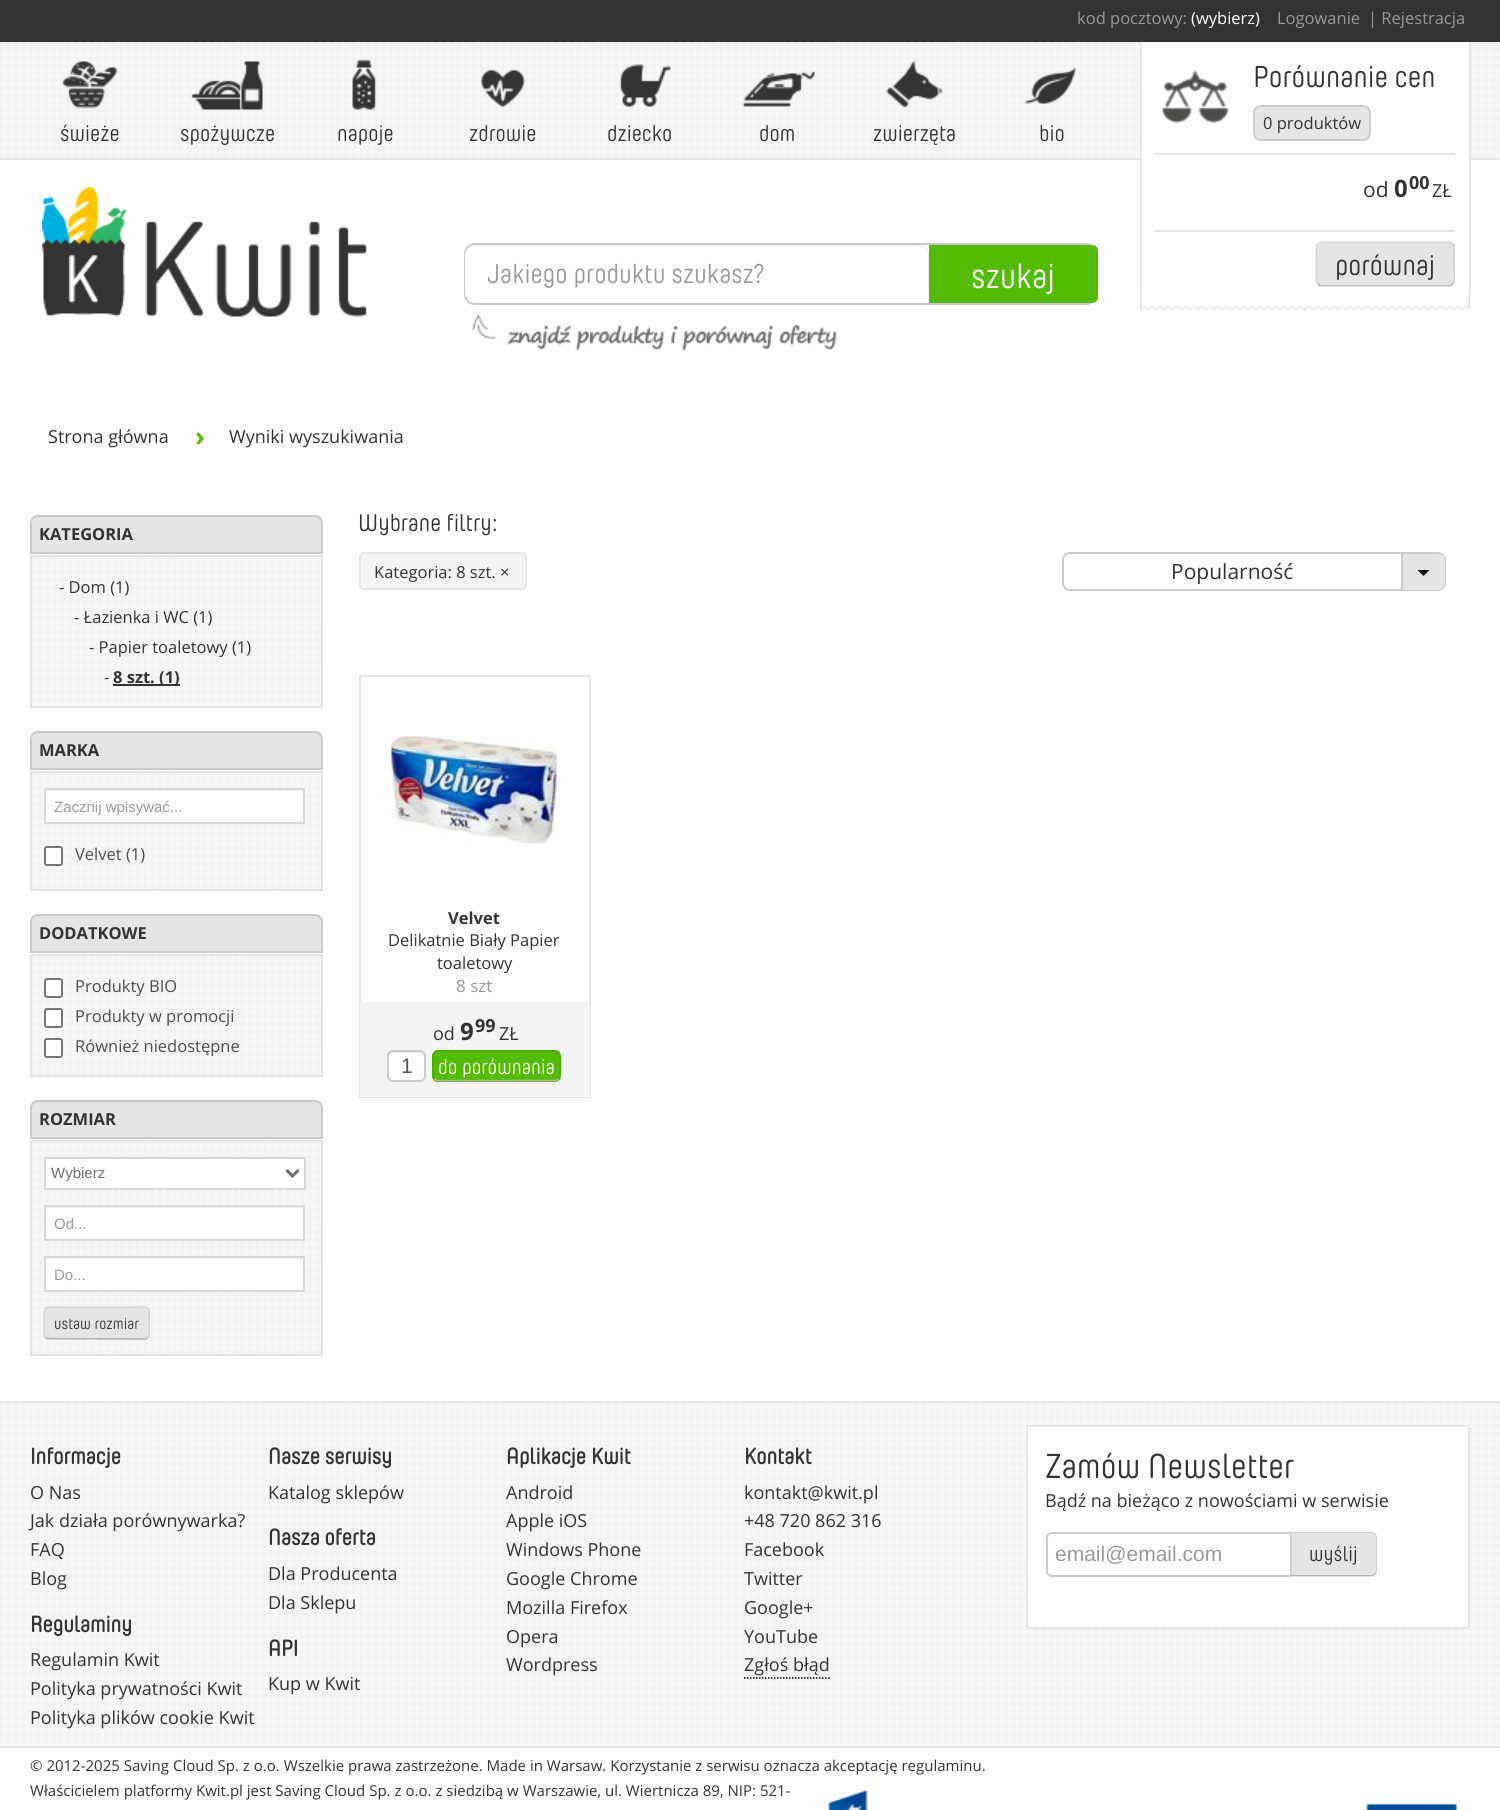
import math
import cairo


def use_color(cr, r, g, b):
  cr.set_source_rgb(r / 255, g / 255, b / 255)

def text(cr, x, y, s, family, size, color, bold=False, italic=False):
  cr.select_font_face(family, cairo.FONT_SLANT_ITALIC if italic else cairo.FONT_SLANT_NORMAL, cairo.FONT_WEIGHT_BOLD if bold else cairo.FONT_WEIGHT_NORMAL)
  cr.set_font_size(size)
  use_color(cr, *color)
  cr.move_to(x, y)
  cr.show_text(s)

def box(cr, x, y, w, h, *color):
  use_color(cr, *color)
  cr.rectangle(x, y, w, h)
  cr.fill()

def round_rect(cr, x, y, w, h, r):
  cr.new_sub_path()
  for i, (u, v) in enumerate([(x + w - r, y + h - r), (x + r, y + h - r), (x + r, y + r), (x + w - r, y + r)]):
    cr.arc(u, v, r, i * math.pi / 2, (i + 1) * math.pi / 2)
  cr.close_path()

def picture(cr, path, x, y, w, h):
  cr.save()
  cr.set_source_surface(cairo.ImageSurface.create_from_png(path), x, y)
  cr.rectangle(x, y, w, h)
  cr.fill()
  cr.restore()

def draw(cr):
  use_color(cr, 255, 255, 255)
  cr.paint()
  picture(cr, "img_01.png", 0, 42, 1500, 116)
  box(cr, 0, 158, 1500, 2, 229, 229, 229)
  box(cr, 0, 0, 1500, 42, 51, 51, 51)
  picture(cr, "img_02.png", 62, 61, 56, 48)
  picture(cr, "img_03.png", 191, 61, 72, 49)
  picture(cr, "img_04.png", 352, 59, 25, 51)
  picture(cr, "img_05.png", 481, 69, 45, 38)
  picture(cr, "img_06.png", 619, 64, 52, 43)
  picture(cr, "img_07.png", 742, 71, 73, 36)
  picture(cr, "img_08.png", 886, 61, 57, 48)
  picture(cr, "img_09.png", 1024, 67, 52, 37)
  box(cr, 1142, 42, 327, 118, 255, 255, 255)
  box(cr, 1469, 42, 2, 252, 229, 229, 229)
  box(cr, 1140, 42, 2, 252, 229, 229, 229)
  picture(cr, "img_10.png", 1162, 70, 67, 54)
  round_rect(cr, 1254, 106, 116, 34, 7)
  cr.fill_preserve()
  use_color(cr, 204, 204, 204)
  cr.stroke()
  box(cr, 1155, 153, 300, 2, 229, 229, 229)
  box(cr, 1155, 230, 300, 2, 229, 229, 229)
  round_rect(cr, 1316, 242, 139, 45, 6)
  cr.fill()
  cr.new_path()
  cr.move_to(1452.5, 284)
  cr.curve_to(1451.5, 285, 1450.5, 286, 1449, 286)
  cr.line_to(1321.5, 286)
  cr.curve_to(1320, 286, 1319, 285, 1318, 284)
  use_color(cr, 179, 179, 179)
  cr.set_line_width(1.5)
  cr.stroke()
  cr.new_path()
  cr.move_to(1318, 284)
  cr.curve_to(1315.5, 282, 1316, 278, 1316, 275)
  cr.line_to(1316, 264)
  cr.curve_to(1316, 237.5, 1313.5, 242, 1343, 242)
  cr.line_to(1449, 242)
  cr.curve_to(1455, 242.5, 1454, 249, 1454, 253)
  cr.line_to(1454, 269.5)
  cr.curve_to(1454, 273, 1456, 281, 1452.5, 284)
  cr.set_source_rgba(0, 0, 0, 0.1)
  cr.stroke()
  picture(cr, "img_11.png", 1140, 286, 330, 25)
  picture(cr, "img_12.png", 42, 187, 325, 130)
  round_rect(cr, 465, 244, 631, 60, 10)
  use_color(cr, 201, 201, 201)
  cr.set_line_width(2)
  cr.stroke()
  use_color(cr, 255, 255, 255)
  round_rect(cr, 465, 245, 464, 58, 11)
  cr.fill()
  cr.set_source_rgba(0, 0, 0, 0.07)
  cr.new_path()
  cr.move_to(476, 246)
  cr.line_to(918, 246)
  cr.curve_to(924, 246, 928, 251, 928, 256)
  cr.line_to(928, 294)
  cr.line_to(927, 298)
  cr.curve_to(928, 296, 929, 294, 929, 292)
  cr.line_to(929, 256)
  cr.curve_to(929, 250, 924, 245, 918, 245)
  cr.line_to(476, 245)
  cr.curve_to(470, 245, 465, 250, 465, 256)
  cr.curve_to(465, 251, 470, 246, 476, 246)
  cr.close_path()
  cr.fill()
  use_color(cr, 83, 187, 2)
  cr.new_path()
  cr.move_to(929, 245)
  cr.line_to(1092, 245)
  cr.curve_to(1095.5, 245, 1098, 247.5, 1098, 251)
  cr.line_to(1098, 297)
  cr.curve_to(1098, 300.5, 1095.5, 303, 1092, 303)
  cr.line_to(929, 303)
  cr.close_path()
  cr.fill()
  picture(cr, "img_13.png", 472, 314, 365, 37)
  use_color(cr, 229, 229, 229)
  cr.new_path()
  cr.move_to(38, 516)
  cr.line_to(315, 516)
  cr.curve_to(319, 516, 322, 519, 322, 523)
  cr.line_to(322, 553)
  cr.line_to(31, 553)
  cr.line_to(31, 523)
  cr.curve_to(31, 519, 34, 516, 38, 516)
  cr.close_path()
  cr.fill_preserve()
  use_color(cr, 202, 202, 202)
  cr.stroke()
  picture(cr, "img_14.png", 32, 557, 289, 149)
  cr.rectangle(31, 556, 291, 151)
  use_color(cr, 228, 228, 228)
  cr.stroke()
  box(cr, 113, 684, 67, 2, 51, 51, 51)
  use_color(cr, 229, 229, 229)
  cr.new_path()
  cr.move_to(38, 732)
  cr.line_to(315, 732)
  cr.curve_to(319, 732, 322, 735, 322, 739)
  cr.line_to(322, 769)
  cr.line_to(31, 769)
  cr.line_to(31, 739)
  cr.curve_to(31, 735, 34, 732, 38, 732)
  cr.close_path()
  cr.fill_preserve()
  use_color(cr, 202, 202, 202)
  cr.stroke()
  picture(cr, "img_15.png", 32, 773, 289, 116)
  cr.rectangle(31, 772, 291, 118)
  use_color(cr, 228, 228, 228)
  cr.stroke()
  box(cr, 46, 791, 257, 31, 255, 255, 255)
  box(cr, 45, 790, 258, 1, 236, 236, 236)
  cr.rectangle(45, 789, 259, 34)
  use_color(cr, 216, 216, 216)
  cr.stroke()
  use_color(cr, 255, 255, 255)
  round_rect(cr, 45, 847, 17, 18, 2)
  cr.fill_preserve()
  use_color(cr, 118, 118, 118)
  cr.stroke()
  use_color(cr, 229, 229, 229)
  cr.new_path()
  cr.move_to(38, 915)
  cr.line_to(315, 915)
  cr.curve_to(319, 915, 322, 918, 322, 922)
  cr.line_to(322, 952)
  cr.line_to(31, 952)
  cr.line_to(31, 922)
  cr.curve_to(31, 918, 34, 915, 38, 915)
  cr.close_path()
  cr.fill_preserve()
  use_color(cr, 202, 202, 202)
  cr.stroke()
  picture(cr, "img_16.png", 32, 956, 289, 119)
  cr.rectangle(31, 955, 291, 121)
  use_color(cr, 228, 228, 228)
  cr.stroke()
  use_color(cr, 255, 255, 255)
  round_rect(cr, 45, 979, 17, 18, 2)
  cr.fill_preserve()
  use_color(cr, 118, 118, 118)
  cr.stroke()
  use_color(cr, 255, 255, 255)
  round_rect(cr, 45, 1009, 17, 18, 2)
  cr.fill_preserve()
  use_color(cr, 118, 118, 118)
  cr.stroke()
  use_color(cr, 255, 255, 255)
  round_rect(cr, 45, 1039, 17, 18, 2)
  cr.fill_preserve()
  use_color(cr, 118, 118, 118)
  cr.stroke()
  use_color(cr, 229, 229, 229)
  cr.new_path()
  cr.move_to(38, 1101)
  cr.line_to(315, 1101)
  cr.curve_to(319, 1101, 322, 1104, 322, 1108)
  cr.line_to(322, 1138)
  cr.line_to(31, 1138)
  cr.line_to(31, 1108)
  cr.curve_to(31, 1104, 34, 1101, 38, 1101)
  cr.close_path()
  cr.fill_preserve()
  use_color(cr, 202, 202, 202)
  cr.stroke()
  picture(cr, "img_17.png", 32, 1142, 289, 212)
  cr.rectangle(31, 1141, 291, 214)
  use_color(cr, 228, 228, 228)
  cr.stroke()
  use_color(cr, 255, 255, 255)
  cr.rectangle(45, 1158, 260, 31)
  cr.fill_preserve()
  use_color(cr, 216, 216, 216)
  cr.stroke()
  cr.new_path()
  cr.move_to(286.5, 1170)
  cr.line_to(292.5, 1176)
  cr.line_to(298.5, 1170)
  use_color(cr, 112, 112, 112)
  cr.set_line_width(3)
  cr.stroke()
  box(cr, 46, 1208, 257, 31, 255, 255, 255)
  box(cr, 45, 1207, 258, 1, 236, 236, 236)
  cr.rectangle(45, 1206, 259, 34)
  use_color(cr, 216, 216, 216)
  cr.set_line_width(2)
  cr.stroke()
  box(cr, 46, 1259, 257, 31, 255, 255, 255)
  box(cr, 45, 1258, 258, 1, 236, 236, 236)
  cr.rectangle(45, 1257, 259, 34)
  use_color(cr, 216, 216, 216)
  cr.stroke()
  use_color(cr, 229, 229, 229)
  round_rect(cr, 44, 1307, 106, 33, 5)
  cr.fill()
  cr.new_path()
  cr.move_to(148, 1337.5)
  cr.line_to(145.5, 1339)
  cr.line_to(47.5, 1338.5)
  cr.line_to(45.5, 1337.5)
  use_color(cr, 179, 179, 179)
  cr.set_line_width(1.5)
  cr.stroke()
  cr.new_path()
  cr.move_to(45.5, 1337.5)
  cr.curve_to(43, 1335, 44, 1330, 44, 1327)
  cr.curve_to(44, 1304, 40, 1307, 64, 1307)
  cr.line_to(129, 1307)
  cr.curve_to(153.5, 1307, 149, 1304, 149, 1327)
  cr.curve_to(149, 1330, 150.5, 1335, 148, 1337.5)
  cr.set_source_rgba(0, 0, 0, 0.1)
  cr.stroke()
  use_color(cr, 244, 244, 244)
  round_rect(cr, 360, 553, 166, 36, 4)
  cr.fill_preserve()
  use_color(cr, 229, 229, 229)
  cr.set_line_width(2)
  cr.stroke()
  round_rect(cr, 1063, 553, 382, 37, 7)
  use_color(cr, 204, 204, 204)
  cr.stroke()
  use_color(cr, 229, 229, 229)
  cr.new_path()
  cr.move_to(1401, 554)
  cr.line_to(1437, 554)
  cr.curve_to(1441.5, 554, 1445, 557.5, 1445, 562)
  cr.line_to(1445, 582)
  cr.curve_to(1445, 586.5, 1441.5, 590, 1437, 590)
  cr.line_to(1401, 590)
  cr.close_path()
  cr.fill()
  box(cr, 1401, 554, 2, 36, 204, 204, 204)
  use_color(cr, 0, 0, 0)
  cr.new_path()
  cr.move_to(1417.5, 570)
  cr.line_to(1429.5, 570)
  cr.line_to(1423.5, 576)
  cr.close_path()
  cr.fill()
  cr.rectangle(360, 676, 230, 421)
  use_color(cr, 229, 229, 229)
  cr.stroke()
  picture(cr, "img_18.png", 391, 736, 166, 107)
  box(cr, 360, 1002, 230, 95, 244, 244, 244)
  use_color(cr, 255, 255, 255)
  round_rect(cr, 387, 1050, 39, 32, 6)
  cr.fill()
  use_color(cr, 236, 236, 236)
  cr.new_path()
  cr.move_to(393, 1053)
  cr.line_to(420.5, 1053)
  cr.curve_to(425, 1054, 424, 1061.5, 424, 1064.5)
  cr.line_to(424, 1078.5)
  cr.curve_to(424.5, 1077.5, 425, 1076.5, 425, 1075)
  cr.line_to(425, 1057)
  cr.curve_to(425, 1054, 423, 1052, 420, 1052)
  cr.line_to(394, 1052)
  cr.curve_to(392, 1052, 390.5, 1053, 389.5, 1054.5)
  cr.curve_to(390.5, 1053.5, 392, 1053, 393, 1053)
  cr.close_path()
  cr.fill()
  round_rect(cr, 388, 1051, 37, 30, 5)
  use_color(cr, 204, 204, 204)
  cr.stroke()
  use_color(cr, 83, 187, 2)
  round_rect(cr, 432, 1050, 129, 32, 6)
  cr.fill()
  cr.new_path()
  cr.move_to(558.5, 1079)
  cr.line_to(555.5, 1080.5)
  cr.line_to(437.5, 1080.5)
  cr.line_to(434.5, 1079)
  use_color(cr, 179, 179, 179)
  cr.set_line_width(1.5)
  cr.stroke()
  cr.new_path()
  cr.move_to(434.5, 1079)
  cr.curve_to(431.5, 1076.5, 433, 1066.5, 433, 1062.5)
  cr.curve_to(433, 1058.5, 431.5, 1051, 438, 1051)
  cr.line_to(555, 1051)
  cr.curve_to(561.5, 1051, 560, 1058.5, 560, 1062.5)
  cr.curve_to(560, 1066.5, 561.5, 1076.5, 558.5, 1079)
  cr.set_source_rgba(0, 0, 0, 0.1)
  cr.stroke()
  picture(cr, "img_19.png", 0, 1403, 1500, 343)
  box(cr, 0, 1401, 1500, 2, 229, 229, 229)
  box(cr, 0, 1746, 1500, 2, 229, 229, 229)
  cr.new_path()
  cr.move_to(744, 1678)
  cr.line_to(829.5, 1678)
  use_color(cr, 0, 0, 0)
  cr.set_dash([1.5, 1.5])
  cr.stroke()
  use_color(cr, 255, 255, 255)
  cr.rectangle(1027, 1426, 442, 202)
  cr.fill_preserve()
  use_color(cr, 229, 229, 229)
  cr.set_line_width(2)
  cr.set_dash([])
  cr.stroke()
  cr.new_path()
  cr.move_to(1052, 1533)
  cr.line_to(1291, 1533)
  cr.line_to(1291, 1576)
  cr.line_to(1052, 1576)
  cr.curve_to(1049, 1576, 1047, 1574, 1047, 1571)
  cr.line_to(1047, 1538)
  cr.curve_to(1047, 1535, 1049, 1533, 1052, 1533)
  cr.close_path()
  use_color(cr, 204, 204, 204)
  cr.stroke()
  use_color(cr, 229, 229, 229)
  cr.new_path()
  cr.move_to(1290, 1532)
  cr.line_to(1371, 1532)
  cr.curve_to(1374.5, 1532, 1377, 1534.5, 1377, 1538)
  cr.line_to(1377, 1571)
  cr.curve_to(1377, 1574.5, 1374.5, 1577, 1371, 1577)
  cr.line_to(1290, 1577)
  cr.close_path()
  cr.fill()
  cr.set_source_rgba(0, 0, 0, 0.1)
  cr.new_path()
  cr.move_to(1292, 1533)
  cr.line_to(1371, 1533)
  cr.curve_to(1372, 1533, 1373, 1533, 1374, 1534)
  cr.line_to(1375, 1533)
  cr.curve_to(1374, 1532, 1372, 1532, 1371, 1532)
  cr.line_to(1290, 1532)
  cr.line_to(1292, 1534)
  cr.close_path()
  cr.fill()
  cr.new_path()
  cr.move_to(1375, 1533)
  cr.curve_to(1376, 1534, 1377, 1536, 1377, 1538)
  cr.line_to(1377, 1570)
  cr.curve_to(1377, 1572, 1376, 1574, 1375, 1575)
  cr.line_to(1374, 1574)
  cr.curve_to(1375, 1573, 1376, 1572, 1376, 1570)
  cr.line_to(1376, 1538)
  cr.curve_to(1376, 1536, 1375, 1535, 1374, 1534)
  cr.close_path()
  cr.fill()
  use_color(cr, 179, 179, 179)
  cr.new_path()
  cr.move_to(1375, 1575)
  cr.curve_to(1374, 1576, 1372, 1576, 1371, 1576)
  cr.line_to(1290, 1576)
  cr.line_to(1292, 1574)
  cr.line_to(1292, 1575)
  cr.line_to(1371, 1575)
  cr.curve_to(1372, 1575, 1373, 1575, 1374, 1574)
  cr.close_path()
  cr.fill()
  cr.set_source_rgba(0, 0, 0, 0.1)
  cr.new_path()
  cr.move_to(1290, 1532)
  cr.line_to(1292, 1534)
  cr.line_to(1292, 1574)
  cr.line_to(1290, 1576)
  cr.close_path()
  cr.fill()
  picture(cr, "img_20.png", 827, 1789, 630, 21)
  text(cr, 1077, 24, "kod pocztowy:", "Open Sans", 16.5, (153, 153, 153))
  text(cr, 1191, 24, "(wybierz)", "Open Sans", 16.5, (255, 255, 255))
  text(cr, 1277, 24, "Logowanie", "Open Sans", 16.5, (153, 153, 153))
  text(cr, 1368, 24, "| Rejestracja", "Open Sans", 16.5, (153, 153, 153))
  text(cr, 60, 141, "świeże", "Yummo", 22.5, (51, 51, 51))
  text(cr, 180, 141, "spożywcze", "Yummo", 22.5, (51, 51, 51))
  text(cr, 337, 141, "napoje", "Yummo", 22.5, (51, 51, 51))
  text(cr, 469, 141, "zdrowie", "Yummo", 22.5, (51, 51, 51))
  text(cr, 607, 141, "dziecko", "Yummo", 22.5, (51, 51, 51))
  text(cr, 759, 141, "dom", "Yummo", 22.5, (51, 51, 51))
  text(cr, 873, 141, "zwierzęta", "Yummo", 22.5, (51, 51, 51))
  text(cr, 1039, 141, "bio", "Yummo", 22.5, (51, 51, 51))
  text(cr, 1253, 87, "Porównanie cen", "Yummo", 30, (51, 51, 51))
  text(cr, 1263, 129, "0 produktów", "Open Sans", 16.5, (51, 51, 51))
  text(cr, 1363, 197, "od", "Open Sans", 21, (51, 51, 51))
  text(cr, 1394, 197, "0", "Open Sans", 24, (51, 51, 51), bold=True)
  text(cr, 1409, 189, "00", "Open Sans", 18, (51, 51, 51), bold=True)
  text(cr, 1432, 197, "ZŁ", "Open Sans", 18, (51, 51, 51))
  text(cr, 1335, 275, "porównaj", "Yummo", 28.5, (51, 51, 51))
  cr.save()
  cr.rectangle(488, 255, 441, 36)
  cr.clip()
  text(cr, 487, 283, "Jakiego produktu szukasz?", "Yummo", 27, (153, 153, 153))
  cr.restore()
  text(cr, 971, 288, "szukaj", "Yummo", 34.5, (255, 255, 255))
  text(cr, 48, 443, "Strona główna", "Open Sans", 18, (51, 51, 51))
  text(cr, 195, 446, "›", "Open Sans", 27, (83, 187, 2), bold=True)
  text(cr, 229, 443, "Wyniki wyszukiwania", "Open Sans", 18, (51, 51, 51))
  text(cr, 39, 540, "KATEGORIA", "Open Sans", 16.5, (51, 51, 51), bold=True)
  text(cr, 59, 593, "- Dom (1)", "Open Sans", 16.5, (51, 51, 51))
  text(cr, 74, 623, "- Łazienka i WC (1)", "Open Sans", 16.5, (51, 51, 51))
  text(cr, 89, 653, "- Papier toaletowy (1)", "Open Sans", 16.5, (51, 51, 51))
  text(cr, 104, 683, "-", "Open Sans", 16.5, (51, 51, 51))
  text(cr, 113, 683, "8 szt. (1)", "Open Sans", 16.5, (51, 51, 51), bold=True)
  text(cr, 39, 756, "MARKA", "Open Sans", 16.5, (51, 51, 51), bold=True)
  cr.save()
  cr.rectangle(54, 798, 240, 17)
  cr.clip()
  text(cr, 54, 812, "Zacznij wpisywać...", "Liberation Sans", 15, (153, 153, 153))
  cr.restore()
  text(cr, 75, 860, "Velvet (1)", "Open Sans", 16.5, (77, 77, 77))
  text(cr, 39, 939, "DODATKOWE", "Open Sans", 16.5, (51, 51, 51), bold=True)
  text(cr, 75, 992, "Produkty BIO", "Open Sans", 16.5, (77, 77, 77))
  text(cr, 75, 1022, "Produkty w promocji", "Open Sans", 16.5, (77, 77, 77))
  text(cr, 75, 1052, "Również niedostępne", "Open Sans", 16.5, (77, 77, 77))
  text(cr, 39, 1125, "ROZMIAR", "Open Sans", 16.5, (51, 51, 51), bold=True)
  text(cr, 51, 1178, "Wybierz", "Liberation Sans", 15, (112, 112, 112))
  text(cr, 54, 1229, "Od...", "Liberation Sans", 15, (153, 153, 153))
  text(cr, 54, 1280, "Do...", "Liberation Sans", 15, (153, 153, 153))
  text(cr, 54, 1329, "ustaw rozmiar", "Yummo", 15.75, (51, 51, 51))
  text(cr, 358, 531, "Wybrane filtry:", "Yummo", 24, (51, 51, 51))
  text(cr, 374, 578, "Kategoria: 8 szt. ×", "Open Sans", 16.5, (51, 51, 51))
  text(cr, 1171, 579, "Popularność", "Open Sans", 21, (51, 51, 51))
  text(cr, 448, 924, "Velvet", "Open Sans", 16.5, (51, 51, 51), bold=True)
  text(cr, 388, 946, "Delikatnie Biały Papier", "Open Sans", 16.5, (51, 51, 51))
  text(cr, 437, 969, "toaletowy", "Open Sans", 16.5, (51, 51, 51))
  text(cr, 456, 992, "8 szt", "Open Sans", 17, (153, 153, 153))
  text(cr, 433, 1040, "od", "Open Sans", 18, (51, 51, 51))
  text(cr, 460, 1040, "9", "Open Sans", 24, (51, 51, 51), bold=True)
  text(cr, 475, 1032, "99", "Open Sans", 18, (51, 51, 51), bold=True)
  text(cr, 499, 1040, "ZŁ", "Open Sans", 18, (51, 51, 51))
  text(cr, 401, 1073, "1", "Liberation Sans", 21, (85, 85, 85))
  text(cr, 438, 1074, "do porównania", "Yummo", 21, (255, 255, 255))
  text(cr, 30, 1464, "Informacje", "Yummo", 22.5, (51, 51, 51), bold=True)
  text(cr, 30, 1499, "O Nas", "Open Sans", 18, (51, 51, 51))
  text(cr, 30, 1527, "Jak działa porównywarka?", "Open Sans", 18, (51, 51, 51))
  text(cr, 30, 1556, "FAQ", "Open Sans", 18, (51, 51, 51))
  text(cr, 30, 1585, "Blog", "Open Sans", 18, (51, 51, 51))
  text(cr, 30, 1632, "Regulaminy", "Yummo", 22.5, (51, 51, 51), bold=True)
  text(cr, 30, 1666, "Regulamin Kwit", "Open Sans", 18, (51, 51, 51))
  text(cr, 30, 1695, "Polityka prywatności Kwit", "Open Sans", 18, (51, 51, 51))
  text(cr, 30, 1724, "Polityka plików cookie Kwit", "Open Sans", 18, (51, 51, 51))
  text(cr, 268, 1464, "Nasze serwisy", "Yummo", 22.5, (51, 51, 51), bold=True)
  text(cr, 268, 1499, "Katalog sklepów", "Open Sans", 18, (51, 51, 51))
  text(cr, 268, 1545, "Nasza oferta", "Yummo", 22.5, (51, 51, 51), bold=True)
  text(cr, 268, 1580, "Dla Producenta", "Open Sans", 18, (51, 51, 51))
  text(cr, 268, 1609, "Dla Sklepu", "Open Sans", 18, (51, 51, 51))
  text(cr, 268, 1656, "API", "Yummo", 22.5, (51, 51, 51), bold=True)
  text(cr, 268, 1690, "Kup w Kwit", "Open Sans", 18, (51, 51, 51))
  text(cr, 506, 1464, "Aplikacje Kwit", "Yummo", 22.5, (51, 51, 51), bold=True)
  text(cr, 506, 1499, "Android", "Open Sans", 18, (51, 51, 51))
  text(cr, 506, 1527, "Apple iOS", "Open Sans", 18, (51, 51, 51))
  text(cr, 506, 1556, "Windows Phone", "Open Sans", 18, (51, 51, 51))
  text(cr, 506, 1585, "Google Chrome", "Open Sans", 18, (51, 51, 51))
  text(cr, 506, 1614, "Mozilla Firefox", "Open Sans", 18, (51, 51, 51))
  text(cr, 506, 1643, "Opera", "Open Sans", 18, (51, 51, 51))
  text(cr, 506, 1671, "Wordpress", "Open Sans", 18, (51, 51, 51))
  text(cr, 744, 1464, "Kontakt", "Yummo", 22.5, (51, 51, 51), bold=True)
  text(cr, 744, 1499, "kontakt@kwit.pl", "Open Sans", 18, (51, 51, 51))
  text(cr, 744, 1527, "+48 720 862 316", "Open Sans", 18, (51, 51, 51))
  text(cr, 744, 1556, "Facebook", "Open Sans", 18, (51, 51, 51))
  text(cr, 744, 1585, "Twitter", "Open Sans", 18, (51, 51, 51))
  text(cr, 744, 1614, "Google+", "Open Sans", 18, (51, 51, 51))
  text(cr, 744, 1643, "YouTube", "Open Sans", 18, (51, 51, 51))
  text(cr, 744, 1671, "Zgłoś błąd", "Open Sans", 18, (51, 51, 51))
  text(cr, 1045, 1478, "Zamów Newsletter", "Yummo", 34.5, (51, 51, 51))
  text(cr, 1045, 1507, "Bądź na bieżąco z nowościami w serwisie", "Open Sans", 18, (51, 51, 51))
  text(cr, 1055, 1561, "email@email.com", "Liberation Sans", 21, (153, 153, 153))
  text(cr, 1309, 1561, "wyślij", "Yummo", 21, (51, 51, 51))
  text(cr, 30, 1771, "© 2012-2025 Saving Cloud Sp. z o.o. Wszelkie prawa zastrzeżone. Made in Warsaw. Korzystanie z serwisu oznacza akceptację regulaminu.", "Open Sans", 15, (51, 51, 51))
  text(cr, 30, 1796, "Właścicielem platformy Kwit.pl jest Saving Cloud Sp. z o.o. z siedzibą w Warszawie, ul. Wiertnicza 89, NIP: 521-", "Open Sans", 15, (51, 51, 51))


surface = cairo.ImageSurface(cairo.FORMAT_RGB24, 1500, 1810)
cr = cairo.Context(surface)
options = cairo.FontOptions()
options.set_hint_metrics(cairo.HINT_METRICS_OFF)
options.set_hint_style(cairo.HINT_STYLE_NONE)
cr.set_font_options(options)
cr.set_miter_limit(4)
draw(cr)
surface.write_to_png("out.png")
